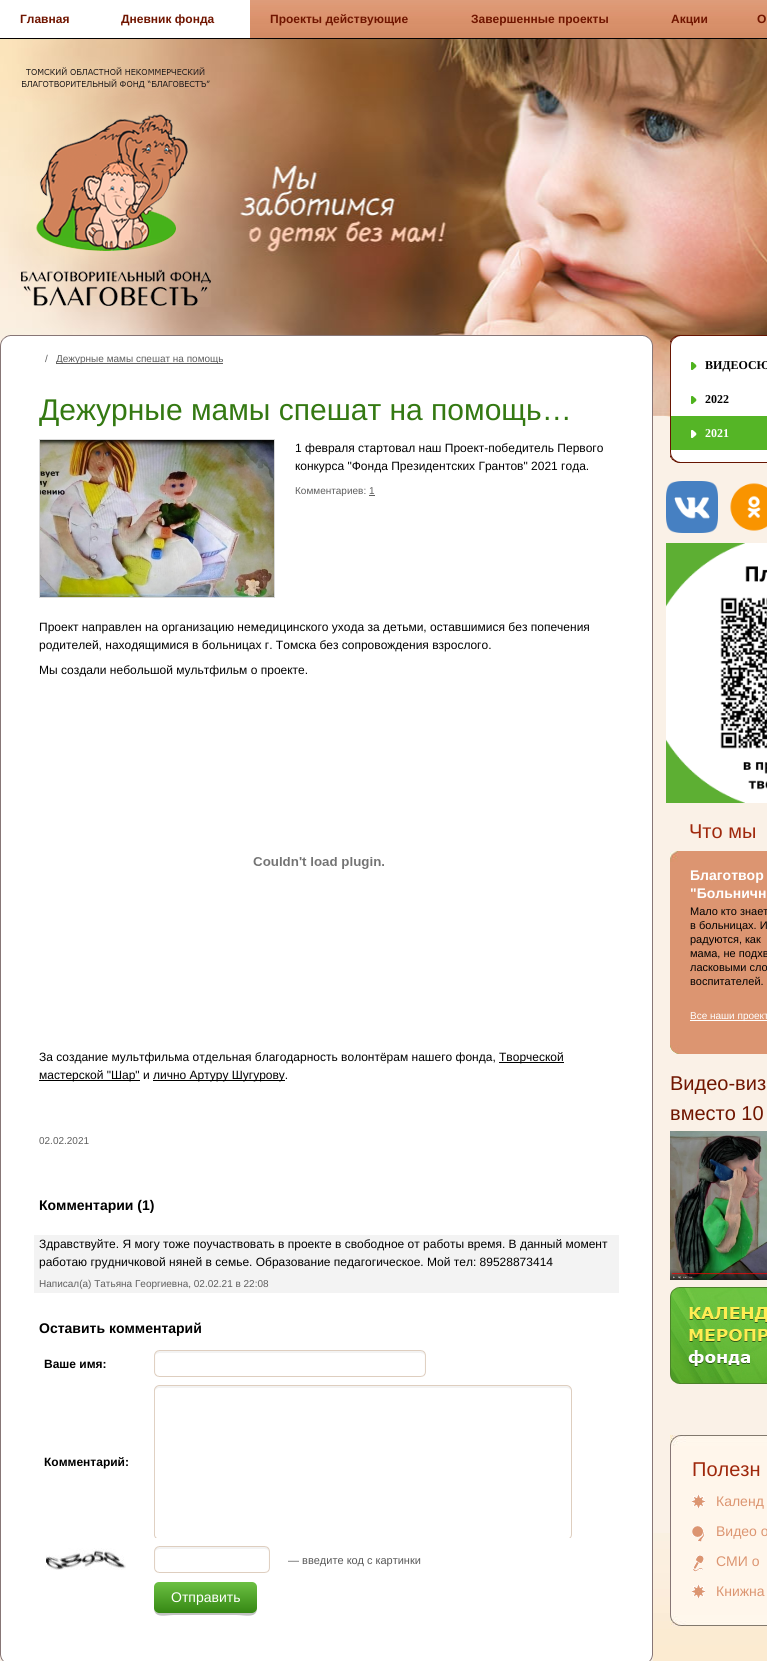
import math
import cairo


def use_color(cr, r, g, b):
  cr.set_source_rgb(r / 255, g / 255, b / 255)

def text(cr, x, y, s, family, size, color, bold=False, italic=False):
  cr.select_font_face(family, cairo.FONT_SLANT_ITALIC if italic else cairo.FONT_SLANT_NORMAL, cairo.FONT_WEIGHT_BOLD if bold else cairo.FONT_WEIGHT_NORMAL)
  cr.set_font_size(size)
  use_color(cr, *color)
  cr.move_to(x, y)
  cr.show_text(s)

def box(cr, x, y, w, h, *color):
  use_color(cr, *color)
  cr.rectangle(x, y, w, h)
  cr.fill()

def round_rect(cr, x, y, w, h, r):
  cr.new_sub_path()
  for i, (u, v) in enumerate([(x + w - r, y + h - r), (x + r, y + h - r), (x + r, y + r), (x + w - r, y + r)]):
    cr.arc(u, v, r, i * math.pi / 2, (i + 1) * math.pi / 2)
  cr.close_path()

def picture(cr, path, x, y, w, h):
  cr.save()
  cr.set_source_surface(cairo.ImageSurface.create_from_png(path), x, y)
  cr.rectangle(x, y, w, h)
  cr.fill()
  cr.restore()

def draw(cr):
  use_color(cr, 250, 241, 231)
  cr.paint()
  picture(cr, "img_01.png", 653, 1533, 114, 128)
  picture(cr, "img_02.png", 0, 38, 767, 379)
  box(cr, 0, 0, 250, 38, 255, 255, 255)
  picture(cr, "img_03.png", 250, 0, 201, 38)
  picture(cr, "img_04.png", 451, 0, 200, 38)
  picture(cr, "img_05.png", 651, 0, 86, 38)
  picture(cr, "img_06.png", 737, 0, 30, 38)
  picture(cr, "img_07.png", 21, 67, 190, 240)
  cr.rectangle(0.5, 335.5, 652, 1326)
  cr.fill_preserve()
  use_color(cr, 135, 118, 118)
  cr.set_line_width(1)
  cr.stroke()
  picture(cr, "img_08.png", 0, 335, 10, 11)
  picture(cr, "img_09.png", 643, 335, 10, 10)
  box(cr, 56, 363, 167, 1, 94, 94, 94)
  cr.rectangle(39.5, 439.5, 235, 158)
  use_color(cr, 217, 217, 217)
  cr.stroke()
  picture(cr, "img_10.png", 40, 440, 234, 157)
  box(cr, 369, 495, 6, 1, 94, 94, 94)
  picture(cr, "img_11.png", 253, 857, 131, 12)
  box(cr, 499, 1062, 65, 1, 0, 0, 0)
  box(cr, 39, 1080, 101, 1, 0, 0, 0)
  box(cr, 153, 1080, 132, 1, 0, 0, 0)
  box(cr, 34, 1235, 585, 58, 243, 243, 243)
  picture(cr, "img_12.png", 159, 1350, 267, 27)
  picture(cr, "img_13.png", 154, 1350, 5, 27)
  picture(cr, "img_14.png", 154, 1385, 418, 153)
  picture(cr, "img_15.png", 45, 1548, 81, 22)
  picture(cr, "img_16.png", 159, 1546, 111, 27)
  picture(cr, "img_13.png", 154, 1546, 5, 27)
  use_color(cr, 194, 194, 194)
  cr.new_path()
  cr.move_to(154, 1608)
  cr.curve_to(154, 1619, 166, 1615, 174, 1615)
  cr.line_to(236, 1615)
  cr.curve_to(245, 1615, 257, 1619, 257, 1608)
  cr.curve_to(257, 1611, 255, 1613, 252, 1613)
  cr.line_to(159, 1613)
  cr.curve_to(156, 1613, 154, 1611, 154, 1608)
  cr.close_path()
  cr.fill()
  gradient = cairo.LinearGradient(154, 1582, 154, 1613)
  gradient.add_color_stop_rgba(0, 0.424, 0.753, 0.263, 1)
  gradient.add_color_stop_rgba(1, 0.208, 0.533, 0.075, 1)
  cr.set_source(gradient)
  round_rect(cr, 154, 1582, 103, 31, 5)
  cr.fill()
  picture(cr, "img_17.png", 0, 1655, 4, 6)
  picture(cr, "img_18.png", 649, 1655, 4, 6)
  picture(cr, "img_19.png", 670, 335, 97, 13)
  box(cr, 671, 348, 96, 68, 255, 255, 255)
  box(cr, 670, 348, 1, 102, 103, 21, 2)
  picture(cr, "img_20.png", 691, 362, 6, 8)
  picture(cr, "img_20.png", 691, 396, 6, 8)
  box(cr, 671, 416, 96, 34, 85, 181, 38)
  picture(cr, "img_21.png", 691, 430, 6, 8)
  picture(cr, "img_22.png", 670, 450, 97, 13)
  picture(cr, "img_23.png", 666, 481, 52, 52)
  picture(cr, "img_24.png", 730, 483, 37, 48)
  picture(cr, "img_25.png", 666, 543, 101, 260)
  box(cr, 670, 851, 97, 203, 220, 149, 113)
  picture(cr, "img_26.png", 670, 851, 8, 11)
  box(cr, 690, 1020, 77, 1, 255, 255, 255)
  picture(cr, "img_27.png", 670, 1045, 9, 9)
  picture(cr, "img_28.png", 670, 1131, 97, 149)
  picture(cr, "img_29.png", 670, 1287, 97, 97)
  picture(cr, "img_30.png", 670, 1435, 97, 11)
  box(cr, 671, 1446, 96, 169, 255, 246, 235)
  box(cr, 670, 1446, 1, 169, 135, 118, 118)
  picture(cr, "img_31.png", 691, 1494, 15, 15)
  picture(cr, "img_32.png", 692, 1526, 13, 16)
  picture(cr, "img_33.png", 693, 1555, 11, 17)
  picture(cr, "img_31.png", 691, 1584, 15, 15)
  picture(cr, "img_34.png", 670, 1615, 97, 11)
  text(cr, 20, 23, "Главная", "Liberation Sans", 12, (112, 21, 0), bold=True)
  text(cr, 121, 23, "Дневник фонда", "Liberation Sans", 12, (112, 21, 0), bold=True)
  text(cr, 270, 23, "Проекты действующие", "Liberation Sans", 12, (112, 21, 0), bold=True)
  text(cr, 471, 23, "Завершенные проекты", "Liberation Sans", 12, (112, 21, 0), bold=True)
  text(cr, 671, 23, "Акции", "Liberation Sans", 12, (112, 21, 0), bold=True)
  text(cr, 757, 23, "О", "Liberation Sans", 12, (112, 21, 0), bold=True)
  text(cr, 45, 362, "/", "Liberation Sans", 10, (94, 94, 94))
  text(cr, 56, 362, "Дежурные мамы спешат на помощь", "Liberation Sans", 10, (94, 94, 94))
  text(cr, 39, 420, "Дежурные мамы спешат на помощь…", "Liberation Sans", 30, (52, 121, 18))
  text(cr, 295, 452, "1 февраля стартовал наш Проект-победитель Первого", "Liberation Sans", 12, (0, 0, 0))
  text(cr, 295, 470, "конкурса \"Фонда Президентских Грантов\" 2021 года.", "Liberation Sans", 12, (0, 0, 0))
  text(cr, 295, 494, "Комментариев: 1", "Liberation Sans", 10, (94, 94, 94))
  text(cr, 39, 631, "Проект направлен на организацию немедицинского ухода за детьми, оставшимися без попечения", "Liberation Sans", 12, (0, 0, 0))
  text(cr, 39, 649, "родителей, находящимися в больницах г. Томска без сопровождения взрослого.", "Liberation Sans", 12, (0, 0, 0))
  text(cr, 39, 674, "Мы создали небольшой мультфильм о проекте.", "Liberation Sans", 12, (0, 0, 0))
  text(cr, 39, 1061, "За создание мультфильма отдельная благодарность волонтёрам нашего фонда,", "Liberation Sans", 12, (0, 0, 0))
  text(cr, 499, 1061, "Творческой", "Liberation Sans", 12, (0, 0, 0))
  text(cr, 39, 1079, "мастерской \"Шар\" и", "Liberation Sans", 12, (0, 0, 0))
  text(cr, 153, 1079, "лично Артуру Шугурову.", "Liberation Sans", 12, (0, 0, 0))
  text(cr, 39, 1144, "02.02.2021", "Liberation Sans", 10, (94, 94, 94))
  text(cr, 39, 1210, "Комментарии (1)", "Liberation Sans", 14, (0, 0, 0), bold=True)
  text(cr, 39, 1248, "Здравствуйте. Я могу тоже поучаствовать в проекте в свободное от работы время. В данный момент", "Liberation Sans", 12, (0, 0, 0))
  text(cr, 39, 1266, "работаю грудничковой няней в семье. Образование педагогическое. Мой тел: 89528873414", "Liberation Sans", 12, (0, 0, 0))
  text(cr, 39, 1287, "Написал(а) Татьяна Георгиевна, 02.02.21 в 22:08", "Liberation Sans", 10, (94, 94, 94))
  text(cr, 39, 1333, "Оставить комментарий", "Liberation Sans", 14, (0, 0, 0), bold=True)
  text(cr, 44, 1368, "Ваше имя:", "Liberation Sans", 12, (0, 0, 0), bold=True)
  text(cr, 44, 1466, "Комментарий:", "Liberation Sans", 12, (0, 0, 0), bold=True)
  text(cr, 288, 1564, "— введите код с картинки", "Liberation Sans", 11, (88, 88, 88))
  text(cr, 171, 1602, "Отправить", "Liberation Sans", 14, (255, 255, 255))
  text(cr, 705, 369, "ВИДЕОСЮ", "Liberation Serif", 12, (0, 0, 0), bold=True)
  text(cr, 705, 403, "2022", "Liberation Serif", 12, (0, 0, 0), bold=True)
  text(cr, 705, 437, "2021", "Liberation Serif", 12, (255, 255, 255), bold=True)
  text(cr, 689, 838, "Что мы", "Liberation Sans", 20, (159, 40, 12))
  text(cr, 690, 880, "Благотвор", "Liberation Sans", 14, (255, 255, 255), bold=True)
  text(cr, 690, 898, "\"Больничн", "Liberation Sans", 14, (255, 255, 255), bold=True)
  text(cr, 690, 915, "Мало кто знает", "Liberation Sans", 11, (0, 0, 0))
  text(cr, 690, 929, "в больницах. И", "Liberation Sans", 11, (0, 0, 0))
  text(cr, 690, 943, "радуются, как", "Liberation Sans", 11, (0, 0, 0))
  text(cr, 690, 957, "мама, не подхв", "Liberation Sans", 11, (0, 0, 0))
  text(cr, 690, 971, "ласковыми сло", "Liberation Sans", 11, (0, 0, 0))
  text(cr, 690, 985, "воспитателей.", "Liberation Sans", 11, (0, 0, 0))
  text(cr, 690, 1019, "Все наши проект", "Liberation Sans", 10, (255, 255, 255))
  text(cr, 670, 1090, "Видео-виз", "Liberation Sans", 20, (112, 21, 0))
  text(cr, 670, 1120, "вместо 10", "Liberation Sans", 20, (112, 21, 0))
  text(cr, 692, 1476, "Полезн", "Liberation Sans", 20, (159, 40, 12))
  text(cr, 716, 1506, "Календ", "Liberation Sans", 14, (220, 149, 113))
  text(cr, 716, 1536, "Видео о", "Liberation Sans", 14, (220, 149, 113))
  text(cr, 716, 1566, "СМИ о", "Liberation Sans", 14, (220, 149, 113))
  text(cr, 716, 1596, "Книжна", "Liberation Sans", 14, (220, 149, 113))


surface = cairo.ImageSurface(cairo.FORMAT_RGB24, 767, 1661)
cr = cairo.Context(surface)
options = cairo.FontOptions()
options.set_hint_metrics(cairo.HINT_METRICS_OFF)
options.set_hint_style(cairo.HINT_STYLE_NONE)
cr.set_font_options(options)
cr.set_miter_limit(4)
draw(cr)
surface.write_to_png("out.png")
